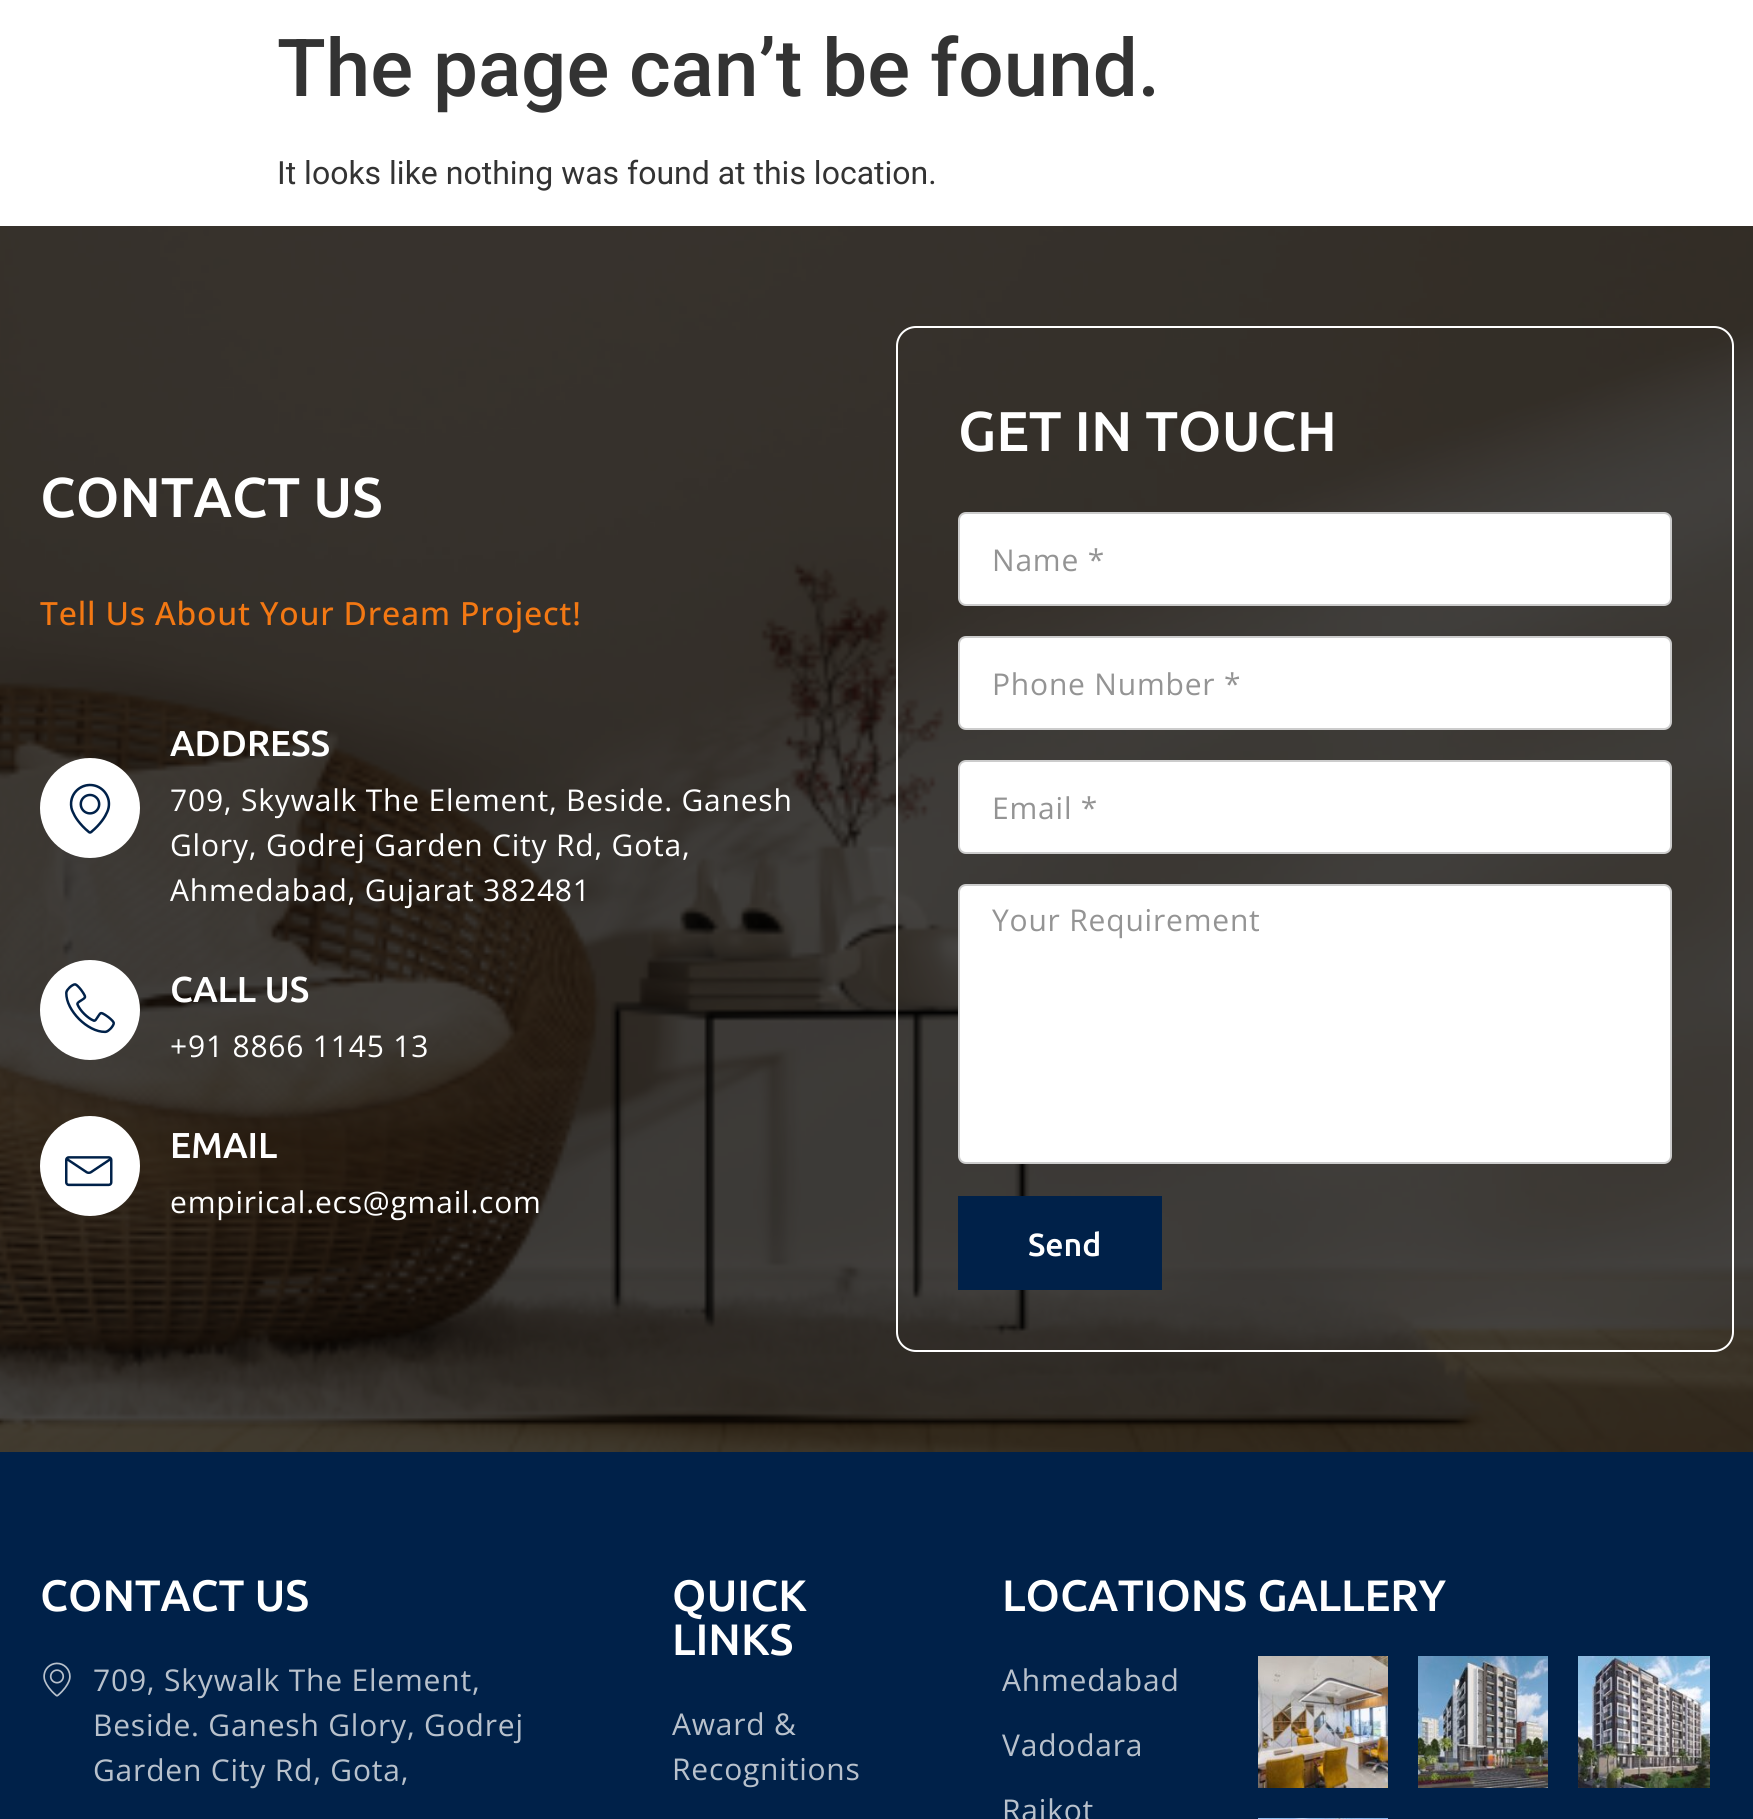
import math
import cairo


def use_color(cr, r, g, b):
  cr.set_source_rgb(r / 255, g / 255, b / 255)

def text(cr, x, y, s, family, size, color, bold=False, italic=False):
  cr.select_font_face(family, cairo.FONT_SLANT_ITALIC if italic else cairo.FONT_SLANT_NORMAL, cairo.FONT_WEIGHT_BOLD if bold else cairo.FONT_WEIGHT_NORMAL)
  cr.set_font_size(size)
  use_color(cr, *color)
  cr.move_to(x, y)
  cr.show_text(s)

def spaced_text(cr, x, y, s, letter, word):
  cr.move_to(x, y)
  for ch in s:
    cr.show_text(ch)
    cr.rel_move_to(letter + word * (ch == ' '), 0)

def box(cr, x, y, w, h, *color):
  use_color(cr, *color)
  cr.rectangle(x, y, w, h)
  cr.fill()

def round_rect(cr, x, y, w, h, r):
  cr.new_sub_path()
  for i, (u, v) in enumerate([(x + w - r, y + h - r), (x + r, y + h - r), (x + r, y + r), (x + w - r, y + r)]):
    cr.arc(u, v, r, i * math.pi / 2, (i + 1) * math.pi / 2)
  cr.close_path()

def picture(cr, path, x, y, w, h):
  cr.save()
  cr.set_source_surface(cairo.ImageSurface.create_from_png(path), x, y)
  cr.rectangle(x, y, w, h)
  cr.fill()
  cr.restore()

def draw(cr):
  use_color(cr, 255, 255, 255)
  cr.paint()
  picture(cr, "img_01.png", 0, 226, 1753, 1226)
  use_color(cr, 255, 255, 255)
  cr.arc(90, 808, 50, 0, 2 * math.pi)
  cr.fill()
  picture(cr, "img_02.png", 69, 783, 42, 51)
  cr.arc(90, 1010, 50, 0, 2 * math.pi)
  cr.fill()
  picture(cr, "img_03.png", 65, 983, 50, 51)
  cr.arc(90, 1166, 50, 0, 2 * math.pi)
  cr.fill()
  picture(cr, "img_04.png", 65, 1156, 48, 31)
  round_rect(cr, 897, 327, 836, 1024, 19)
  cr.stroke()
  round_rect(cr, 959, 513, 712, 92, 7)
  cr.fill_preserve()
  use_color(cr, 204, 204, 204)
  cr.stroke()
  use_color(cr, 255, 255, 255)
  round_rect(cr, 959, 637, 712, 92, 7)
  cr.fill_preserve()
  use_color(cr, 204, 204, 204)
  cr.stroke()
  use_color(cr, 255, 255, 255)
  round_rect(cr, 959, 761, 712, 92, 7)
  cr.fill_preserve()
  use_color(cr, 204, 204, 204)
  cr.stroke()
  use_color(cr, 255, 255, 255)
  round_rect(cr, 959, 885, 712, 278, 7)
  cr.fill_preserve()
  use_color(cr, 204, 204, 204)
  cr.stroke()
  box(cr, 958, 1196, 204, 94, 0, 33, 73)
  box(cr, 0, 1452, 1753, 367, 0, 33, 73)
  picture(cr, "img_05.png", 43, 1662, 28, 35)
  picture(cr, "img_06.png", 1258, 1656, 130, 132)
  picture(cr, "img_07.png", 1418, 1656, 130, 132)
  picture(cr, "img_08.png", 1578, 1656, 132, 132)
  picture(cr, "img_09.png", 1258, 1818, 130, 1)
  text(cr, 277, 96, "The page can’t be found.", "Roboto Medium", 80, (51, 51, 51))
  text(cr, 277, 184, "It looks like nothing was found at this location.", "Roboto", 32, (51, 51, 51))
  text(cr, 40, 517, "CONTACT US", "Ubuntu Medium", 56, (255, 255, 255))
  cr.select_font_face("Open Sans Medium")
  cr.set_font_size(32)
  use_color(cr, 243, 120, 19)
  spaced_text(cr, 40, 625, "Tell Us About Your Dream Project!", 0.8, 0)
  text(cr, 170, 756, "ADDRESS", "Ubuntu Medium", 36, (255, 255, 255))
  cr.select_font_face("Open Sans")
  cr.set_font_size(30)
  spaced_text(cr, 170, 811, "709, Skywalk The Element, Beside. Ganesh", 0.8, 0)
  spaced_text(cr, 170, 856, "Glory, Godrej Garden City Rd, Gota,", 0.8, 0)
  spaced_text(cr, 170, 901, "Ahmedabad, Gujarat 382481", 0.8, 0)
  text(cr, 170, 1002, "CALL US", "Ubuntu Medium", 36, (255, 255, 255))
  cr.select_font_face("Open Sans")
  cr.set_font_size(30)
  spaced_text(cr, 170, 1057, "+91 8866 1145 13", 0.8, 0)
  text(cr, 170, 1158, "EMAIL", "Ubuntu Medium", 36, (255, 255, 255))
  cr.select_font_face("Open Sans")
  cr.set_font_size(30)
  spaced_text(cr, 170, 1213, "empirical.ecs@gmail.com", 0.8, 0)
  text(cr, 958, 451, "GET IN TOUCH", "Ubuntu Medium", 56, (255, 255, 255))
  cr.select_font_face("Open Sans")
  cr.set_font_size(30)
  use_color(cr, 148, 148, 148)
  spaced_text(cr, 992, 571, "Name *", 0.8, 0)
  spaced_text(cr, 992, 695, "Phone Number *", 0.8, 0)
  spaced_text(cr, 992, 819, "Email *", 0.8, 0)
  spaced_text(cr, 992, 931, "Your Requirement", 0.8, 0)
  text(cr, 1028, 1256, "Send", "Ubuntu Medium", 32, (255, 255, 255))
  text(cr, 40, 1611, "CONTACT US", "Ubuntu Medium", 44, (255, 255, 255))
  cr.select_font_face("Open Sans")
  cr.set_font_size(30)
  use_color(cr, 184, 193, 204)
  spaced_text(cr, 93, 1691, "709, Skywalk The Element,", 0.8, 0)
  spaced_text(cr, 93, 1736, "Beside. Ganesh Glory, Godrej", 0.8, 0)
  spaced_text(cr, 93, 1781, "Garden City Rd, Gota,", 0.8, 0)
  text(cr, 672, 1611, "QUICK", "Ubuntu Medium", 44, (255, 255, 255))
  text(cr, 672, 1655, "LINKS", "Ubuntu Medium", 44, (255, 255, 255))
  cr.select_font_face("Open Sans")
  cr.set_font_size(30)
  use_color(cr, 184, 193, 204)
  spaced_text(cr, 672, 1735, "Award &", 0.8, 0)
  spaced_text(cr, 672, 1780, "Recognitions", 0.8, 0)
  text(cr, 1002, 1611, "LOCATIONS GALLERY", "Ubuntu Medium", 44, (255, 255, 255))
  cr.select_font_face("Open Sans")
  cr.set_font_size(30)
  use_color(cr, 184, 193, 204)
  spaced_text(cr, 1002, 1691, "Ahmedabad", 0.8, 0)
  spaced_text(cr, 1002, 1756, "Vadodara", 0.8, 0)
  spaced_text(cr, 1002, 1821, "Rajkot", 0.8, 0)


surface = cairo.ImageSurface(cairo.FORMAT_RGB24, 1753, 1819)
cr = cairo.Context(surface)
options = cairo.FontOptions()
options.set_hint_metrics(cairo.HINT_METRICS_OFF)
options.set_hint_style(cairo.HINT_STYLE_NONE)
cr.set_font_options(options)
cr.set_miter_limit(4)
draw(cr)
surface.write_to_png("out.png")
